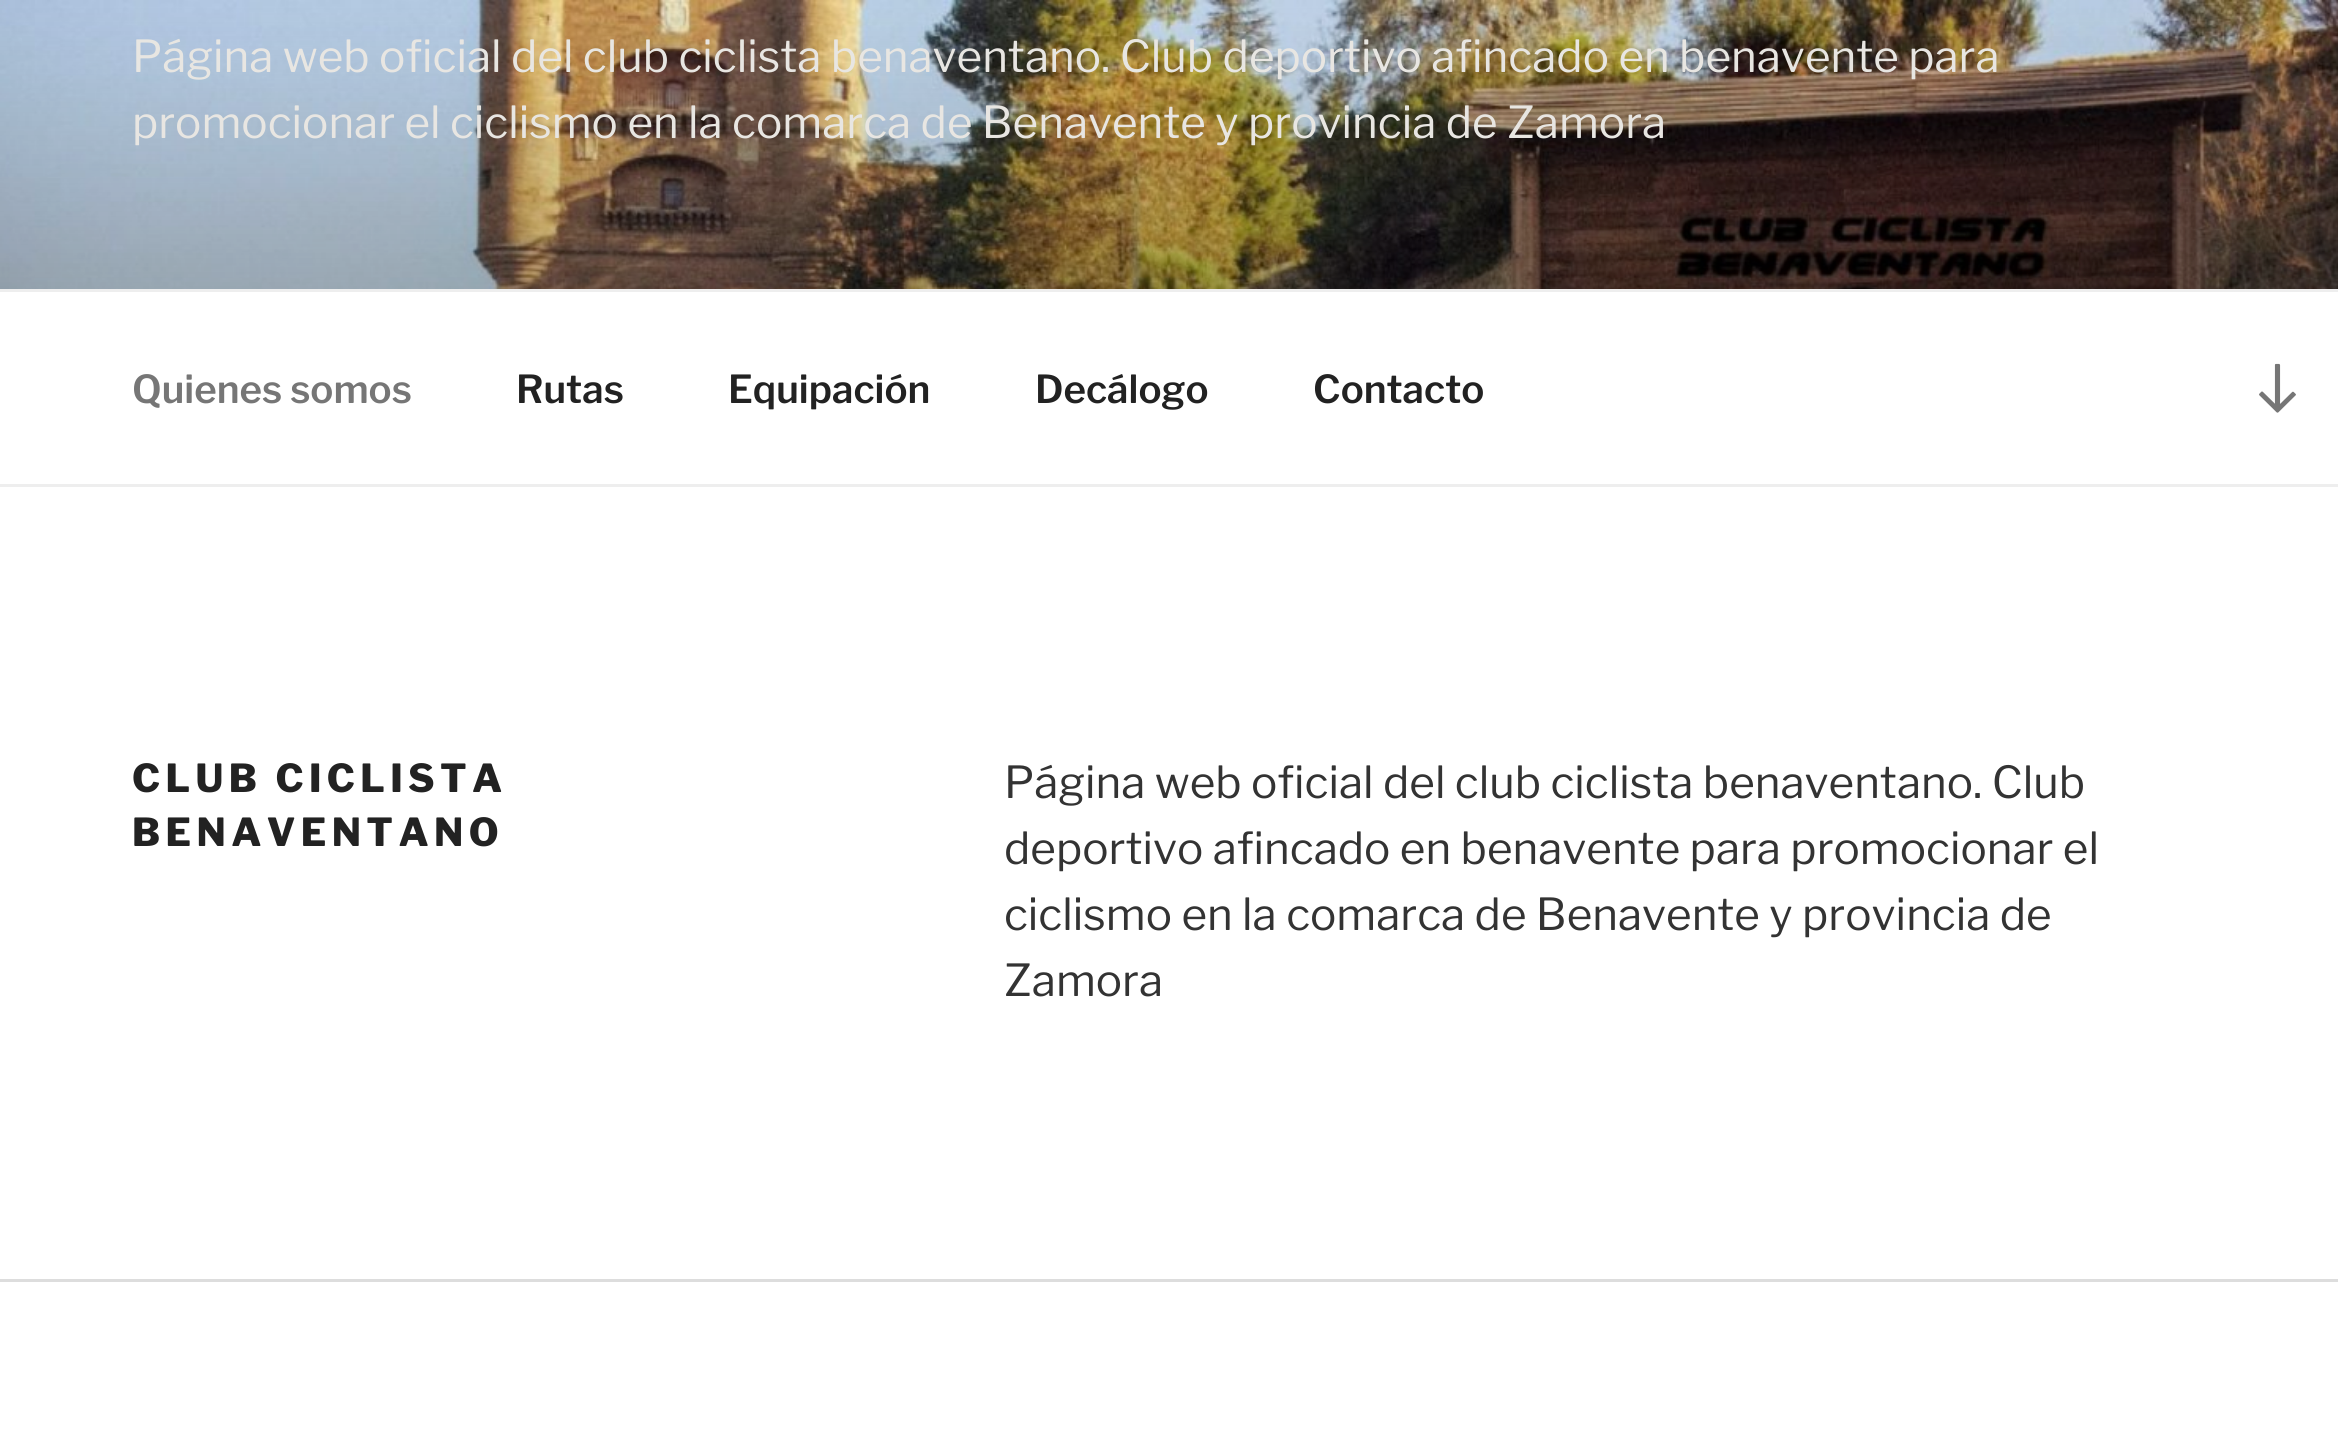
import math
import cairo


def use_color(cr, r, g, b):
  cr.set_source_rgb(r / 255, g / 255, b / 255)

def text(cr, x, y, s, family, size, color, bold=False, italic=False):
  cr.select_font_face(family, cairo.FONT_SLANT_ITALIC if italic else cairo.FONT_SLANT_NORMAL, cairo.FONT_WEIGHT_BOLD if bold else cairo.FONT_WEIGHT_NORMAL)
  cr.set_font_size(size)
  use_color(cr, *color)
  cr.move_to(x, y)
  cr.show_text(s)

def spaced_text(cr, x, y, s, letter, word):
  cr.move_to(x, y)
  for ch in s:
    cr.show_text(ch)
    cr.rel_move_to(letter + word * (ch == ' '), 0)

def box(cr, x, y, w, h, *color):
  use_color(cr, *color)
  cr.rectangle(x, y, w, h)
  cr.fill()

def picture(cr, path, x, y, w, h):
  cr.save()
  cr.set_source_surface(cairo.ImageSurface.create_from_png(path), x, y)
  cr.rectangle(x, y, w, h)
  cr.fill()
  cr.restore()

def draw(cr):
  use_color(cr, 255, 255, 255)
  cr.paint()
  picture(cr, "img_01.png", 0, 0, 2338, 289)
  box(cr, 0, 289, 2338, 3, 238, 238, 238)
  box(cr, 0, 484, 2338, 3, 238, 238, 238)
  picture(cr, "img_02.png", 2259, 363, 37, 50)
  box(cr, 0, 1279, 2338, 3, 221, 221, 221)
  text(cr, 132, 72, "Página web oficial del club ciclista benaventano. Club deportivo afincado en benavente para", "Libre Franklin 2 Thin", 44, (232, 230, 226))
  text(cr, 132, 138, "promocionar el ciclismo en la comarca de Benavente y provincia de Zamora", "Libre Franklin 2 Thin", 44, (232, 230, 226))
  text(cr, 132, 403, "Quienes somos", "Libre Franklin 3 Thin", 38.5, (118, 118, 118))
  text(cr, 516, 403, "Rutas", "Libre Franklin 3 Thin", 38.5, (34, 34, 34))
  text(cr, 728, 403, "Equipación", "Libre Franklin 3 Thin", 38.5, (34, 34, 34))
  text(cr, 1035, 403, "Decálogo", "Libre Franklin 3 Thin", 38.5, (34, 34, 34))
  text(cr, 1313, 403, "Contacto", "Libre Franklin 3 Thin", 38.5, (34, 34, 34))
  cr.select_font_face("Libre Franklin Thin")
  spaced_text(cr, 132, 792, "CLUB CICLISTA", 5.4, 0)
  spaced_text(cr, 132, 846, "BENAVENTANO", 5.4, 0)
  text(cr, 1004, 798, "Página web oficial del club ciclista benaventano. Club", "Libre Franklin 2 Thin", 44, (51, 51, 51))
  text(cr, 1004, 864, "deportivo afincado en benavente para promocionar el", "Libre Franklin 2 Thin", 44, (51, 51, 51))
  text(cr, 1004, 930, "ciclismo en la comarca de Benavente y provincia de", "Libre Franklin 2 Thin", 44, (51, 51, 51))
  text(cr, 1004, 996, "Zamora", "Libre Franklin 2 Thin", 44, (51, 51, 51))


surface = cairo.ImageSurface(cairo.FORMAT_RGB24, 2338, 1456)
cr = cairo.Context(surface)
options = cairo.FontOptions()
options.set_hint_metrics(cairo.HINT_METRICS_OFF)
options.set_hint_style(cairo.HINT_STYLE_NONE)
cr.set_font_options(options)
cr.set_miter_limit(4)
draw(cr)
surface.write_to_png("out.png")
